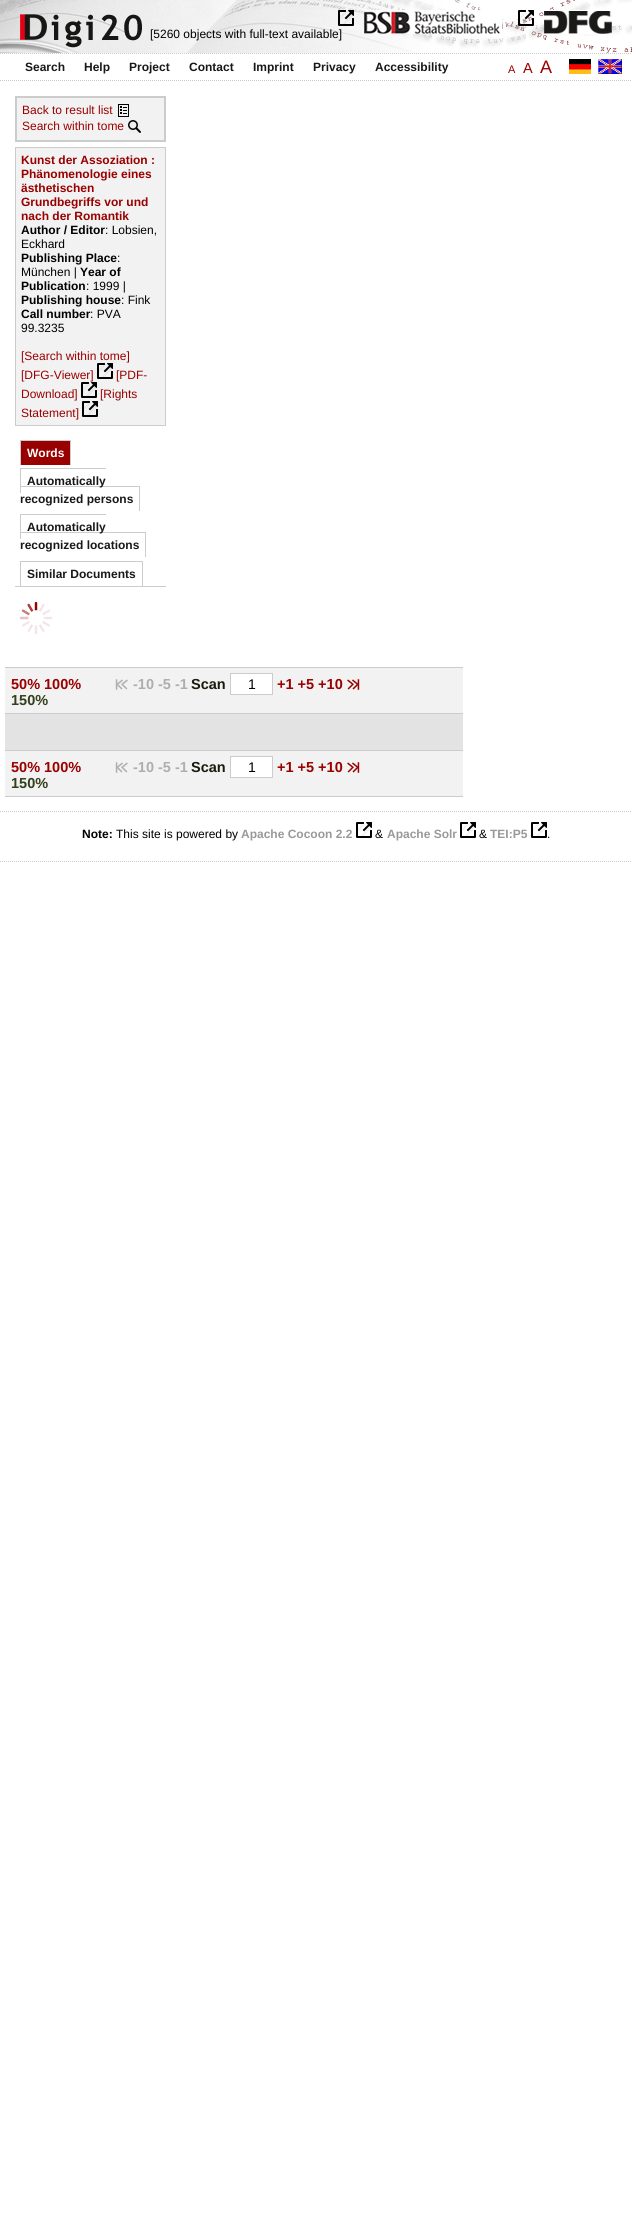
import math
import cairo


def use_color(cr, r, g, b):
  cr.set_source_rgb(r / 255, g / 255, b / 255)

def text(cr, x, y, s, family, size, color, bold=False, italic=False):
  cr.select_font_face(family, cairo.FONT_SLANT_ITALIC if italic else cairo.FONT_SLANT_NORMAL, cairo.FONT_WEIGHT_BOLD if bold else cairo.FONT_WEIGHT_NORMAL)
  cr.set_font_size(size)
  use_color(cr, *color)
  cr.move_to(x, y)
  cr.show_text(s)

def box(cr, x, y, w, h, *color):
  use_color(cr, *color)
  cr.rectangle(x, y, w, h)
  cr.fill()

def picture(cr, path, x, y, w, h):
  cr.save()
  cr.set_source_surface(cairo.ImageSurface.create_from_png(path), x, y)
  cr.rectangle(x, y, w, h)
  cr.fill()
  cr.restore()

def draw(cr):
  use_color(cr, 255, 255, 255)
  cr.paint()
  picture(cr, "img_01.png", 0, 0, 632, 53)
  picture(cr, "img_02.png", 364, 10, 138, 24)
  picture(cr, "img_03.png", 338, 10, 16, 16)
  picture(cr, "img_04.png", 544, 10, 68, 24)
  picture(cr, "img_05.png", 518, 10, 16, 16)
  cr.new_path()
  cr.move_to(0, 53.5)
  cr.line_to(632, 53.5)
  use_color(cr, 204, 204, 204)
  cr.set_line_width(1)
  cr.set_dash([1, 1])
  cr.stroke()
  cr.new_path()
  cr.move_to(0, 80.5)
  cr.line_to(632, 80.5)
  cr.stroke()
  picture(cr, "img_06.png", 569, 59, 22, 15)
  picture(cr, "img_07.png", 598, 59, 24, 15)
  use_color(cr, 242, 242, 242)
  cr.rectangle(16, 97, 149, 44)
  cr.fill_preserve()
  use_color(cr, 204, 204, 204)
  cr.set_line_width(2)
  cr.set_dash([])
  cr.stroke()
  picture(cr, "img_08.png", 118, 104, 11, 13)
  picture(cr, "img_09.png", 128, 120, 13, 13)
  use_color(cr, 242, 242, 242)
  cr.rectangle(15.5, 147.5, 150, 278)
  cr.fill_preserve()
  use_color(cr, 204, 204, 204)
  cr.set_line_width(1)
  cr.stroke()
  picture(cr, "img_10.png", 97, 363, 16, 16)
  picture(cr, "img_10.png", 81, 382, 16, 16)
  picture(cr, "img_10.png", 82, 401, 16, 16)
  box(cr, 15, 586, 151, 1, 204, 204, 204)
  box(cr, 21, 441, 49, 24, 153, 0, 0)
  box(cr, 20, 440, 51, 1, 204, 204, 204)
  box(cr, 70, 440, 1, 25, 204, 204, 204)
  box(cr, 20, 440, 1, 25, 204, 204, 204)
  box(cr, 20, 468, 86, 1, 204, 204, 204)
  box(cr, 20, 468, 1, 25, 204, 204, 204)
  box(cr, 20, 486, 120, 1, 204, 204, 204)
  box(cr, 139, 486, 1, 25, 204, 204, 204)
  box(cr, 20, 514, 86, 1, 204, 204, 204)
  box(cr, 20, 514, 1, 25, 204, 204, 204)
  box(cr, 20, 532, 126, 1, 204, 204, 204)
  box(cr, 145, 532, 1, 25, 204, 204, 204)
  box(cr, 20, 561, 123, 1, 204, 204, 204)
  box(cr, 142, 561, 1, 25, 204, 204, 204)
  box(cr, 20, 561, 1, 25, 204, 204, 204)
  picture(cr, "img_11.png", 20, 602, 32, 32)
  box(cr, 5, 668, 458, 45, 242, 242, 242)
  box(cr, 5, 667, 458, 1, 204, 204, 204)
  box(cr, 5, 713, 458, 1, 204, 204, 204)
  picture(cr, "img_12.png", 115, 679, 13, 11)
  use_color(cr, 255, 255, 255)
  cr.rectangle(230.5, 673.5, 42, 21)
  cr.fill_preserve()
  use_color(cr, 204, 204, 204)
  cr.stroke()
  picture(cr, "img_13.png", 347, 679, 13, 11)
  box(cr, 5, 714, 458, 36, 227, 227, 227)
  box(cr, 5, 751, 458, 45, 242, 242, 242)
  box(cr, 5, 750, 458, 1, 204, 204, 204)
  box(cr, 5, 796, 458, 1, 204, 204, 204)
  picture(cr, "img_12.png", 115, 762, 13, 11)
  use_color(cr, 255, 255, 255)
  cr.rectangle(230.5, 756.5, 42, 21)
  cr.fill_preserve()
  use_color(cr, 204, 204, 204)
  cr.stroke()
  picture(cr, "img_13.png", 347, 762, 13, 11)
  cr.new_path()
  cr.move_to(0, 811.5)
  cr.line_to(632, 811.5)
  cr.set_dash([1, 1])
  cr.stroke()
  cr.new_path()
  cr.move_to(0, 861.5)
  cr.line_to(632, 861.5)
  cr.stroke()
  picture(cr, "img_14.png", 356, 822, 16, 16)
  picture(cr, "img_14.png", 460, 822, 16, 16)
  picture(cr, "img_14.png", 531, 822, 16, 16)
  text(cr, 150, 38, "[5260 objects with full-text available]", "Liberation Sans", 12, (0, 0, 0))
  text(cr, 25, 71, "Search", "Liberation Sans", 12, (24, 24, 24), bold=True)
  text(cr, 84, 71, "Help", "Liberation Sans", 12, (24, 24, 24), bold=True)
  text(cr, 129, 71, "Project", "Liberation Sans", 12, (24, 24, 24), bold=True)
  text(cr, 189, 71, "Contact", "Liberation Sans", 12, (24, 24, 24), bold=True)
  text(cr, 253, 71, "Imprint", "Liberation Sans", 12, (24, 24, 24), bold=True)
  text(cr, 313, 71, "Privacy", "Liberation Sans", 12, (24, 24, 24), bold=True)
  text(cr, 375, 71, "Accessibility", "Liberation Sans", 12, (24, 24, 24), bold=True)
  text(cr, 508, 73, "A", "Liberation Sans", 11, (153, 0, 0))
  text(cr, 523, 73, "A", "Liberation Sans", 14.5, (153, 0, 0))
  text(cr, 540, 73, "A", "Liberation Sans", 18, (153, 0, 0))
  text(cr, 22, 114, "Back to result list", "Liberation Sans", 12, (153, 0, 0))
  text(cr, 22, 130, "Search within tome", "Liberation Sans", 12, (153, 0, 0))
  text(cr, 21, 164, "Kunst der Assoziation :", "Liberation Sans", 12, (153, 0, 0), bold=True)
  text(cr, 21, 178, "Phänomenologie eines", "Liberation Sans", 12, (153, 0, 0), bold=True)
  text(cr, 21, 192, "ästhetischen", "Liberation Sans", 12, (153, 0, 0), bold=True)
  text(cr, 21, 206, "Grundbegriffs vor und", "Liberation Sans", 12, (153, 0, 0), bold=True)
  text(cr, 21, 220, "nach der Romantik", "Liberation Sans", 12, (153, 0, 0), bold=True)
  text(cr, 21, 234, "Author / Editor", "Liberation Sans", 12, (0, 0, 0), bold=True)
  text(cr, 105, 234, ": Lobsien,", "Liberation Sans", 12, (0, 0, 0))
  text(cr, 21, 248, "Eckhard", "Liberation Sans", 12, (0, 0, 0))
  text(cr, 21, 262, "Publishing Place", "Liberation Sans", 12, (0, 0, 0), bold=True)
  text(cr, 117, 262, ":", "Liberation Sans", 12, (0, 0, 0))
  text(cr, 21, 276, "München |", "Liberation Sans", 12, (0, 0, 0))
  text(cr, 80, 276, "Year of", "Liberation Sans", 12, (0, 0, 0), bold=True)
  text(cr, 21, 290, "Publication", "Liberation Sans", 12, (0, 0, 0), bold=True)
  text(cr, 86, 290, ": 1999 |", "Liberation Sans", 12, (0, 0, 0))
  text(cr, 21, 304, "Publishing house", "Liberation Sans", 12, (0, 0, 0), bold=True)
  text(cr, 121, 304, ": Fink", "Liberation Sans", 12, (0, 0, 0))
  text(cr, 21, 318, "Call number", "Liberation Sans", 12, (0, 0, 0), bold=True)
  text(cr, 90, 318, ": PVA", "Liberation Sans", 12, (0, 0, 0))
  text(cr, 21, 332, "99.3235", "Liberation Sans", 12, (0, 0, 0))
  text(cr, 21, 360, "[Search within tome]", "Liberation Sans", 12, (153, 0, 0))
  text(cr, 21, 379, "[DFG-Viewer]", "Liberation Sans", 12, (153, 0, 0))
  text(cr, 116, 379, "[PDF-", "Liberation Sans", 12, (153, 0, 0))
  text(cr, 21, 398, "Download]", "Liberation Sans", 12, (153, 0, 0))
  text(cr, 100, 398, "[Rights", "Liberation Sans", 12, (153, 0, 0))
  text(cr, 21, 417, "Statement]", "Liberation Sans", 12, (153, 0, 0))
  text(cr, 27, 457, "Words", "Liberation Sans", 12, (255, 255, 255), bold=True)
  text(cr, 27, 485, "Automatically", "Liberation Sans", 12, (24, 24, 24), bold=True)
  text(cr, 20, 503, "recognized persons", "Liberation Sans", 12, (24, 24, 24), bold=True)
  text(cr, 27, 531, "Automatically", "Liberation Sans", 12, (24, 24, 24), bold=True)
  text(cr, 20, 549, "recognized locations", "Liberation Sans", 12, (24, 24, 24), bold=True)
  text(cr, 27, 578, "Similar Documents", "Liberation Sans", 12, (24, 24, 24), bold=True)
  text(cr, 11, 689, "50% 100%", "Liberation Sans", 14.5, (153, 0, 0), bold=True)
  text(cr, 11, 705, "150%", "Liberation Sans", 14.5, (51, 63, 29), bold=True)
  text(cr, 133, 689, "-10 -5 -1", "Liberation Sans", 14.5, (174, 174, 174), bold=True)
  text(cr, 191, 689, "Scan", "Liberation Sans", 14.5, (23, 28, 13), bold=True)
  text(cr, 248, 689, "1", "Liberation Sans", 14, (0, 0, 0))
  text(cr, 277, 689, "+1 +5 +10", "Liberation Sans", 14.5, (153, 0, 0), bold=True)
  text(cr, 11, 772, "50% 100%", "Liberation Sans", 14.5, (153, 0, 0), bold=True)
  text(cr, 11, 788, "150%", "Liberation Sans", 14.5, (51, 63, 29), bold=True)
  text(cr, 133, 772, "-10 -5 -1", "Liberation Sans", 14.5, (174, 174, 174), bold=True)
  text(cr, 191, 772, "Scan", "Liberation Sans", 14.5, (23, 28, 13), bold=True)
  text(cr, 248, 772, "1", "Liberation Sans", 14, (0, 0, 0))
  text(cr, 277, 772, "+1 +5 +10", "Liberation Sans", 14.5, (153, 0, 0), bold=True)
  text(cr, 82, 838, "Note:", "Liberation Sans", 12, (0, 0, 0), bold=True)
  text(cr, 116, 838, "This site is powered by", "Liberation Sans", 12, (0, 0, 0))
  text(cr, 241, 838, "Apache Cocoon 2.2", "Liberation Sans", 12, (153, 153, 153), bold=True)
  text(cr, 375, 838, "&", "Liberation Sans", 12, (0, 0, 0))
  text(cr, 387, 838, "Apache Solr", "Liberation Sans", 12, (153, 153, 153), bold=True)
  text(cr, 479, 838, "&", "Liberation Sans", 12, (0, 0, 0))
  text(cr, 490, 838, "TEI:P5", "Liberation Sans", 12, (153, 153, 153), bold=True)
  text(cr, 547, 838, ".", "Liberation Sans", 12, (0, 0, 0))


surface = cairo.ImageSurface(cairo.FORMAT_RGB24, 633, 2238)
cr = cairo.Context(surface)
options = cairo.FontOptions()
options.set_hint_metrics(cairo.HINT_METRICS_OFF)
options.set_hint_style(cairo.HINT_STYLE_NONE)
cr.set_font_options(options)
cr.set_miter_limit(4)
draw(cr)
surface.write_to_png("out.png")
